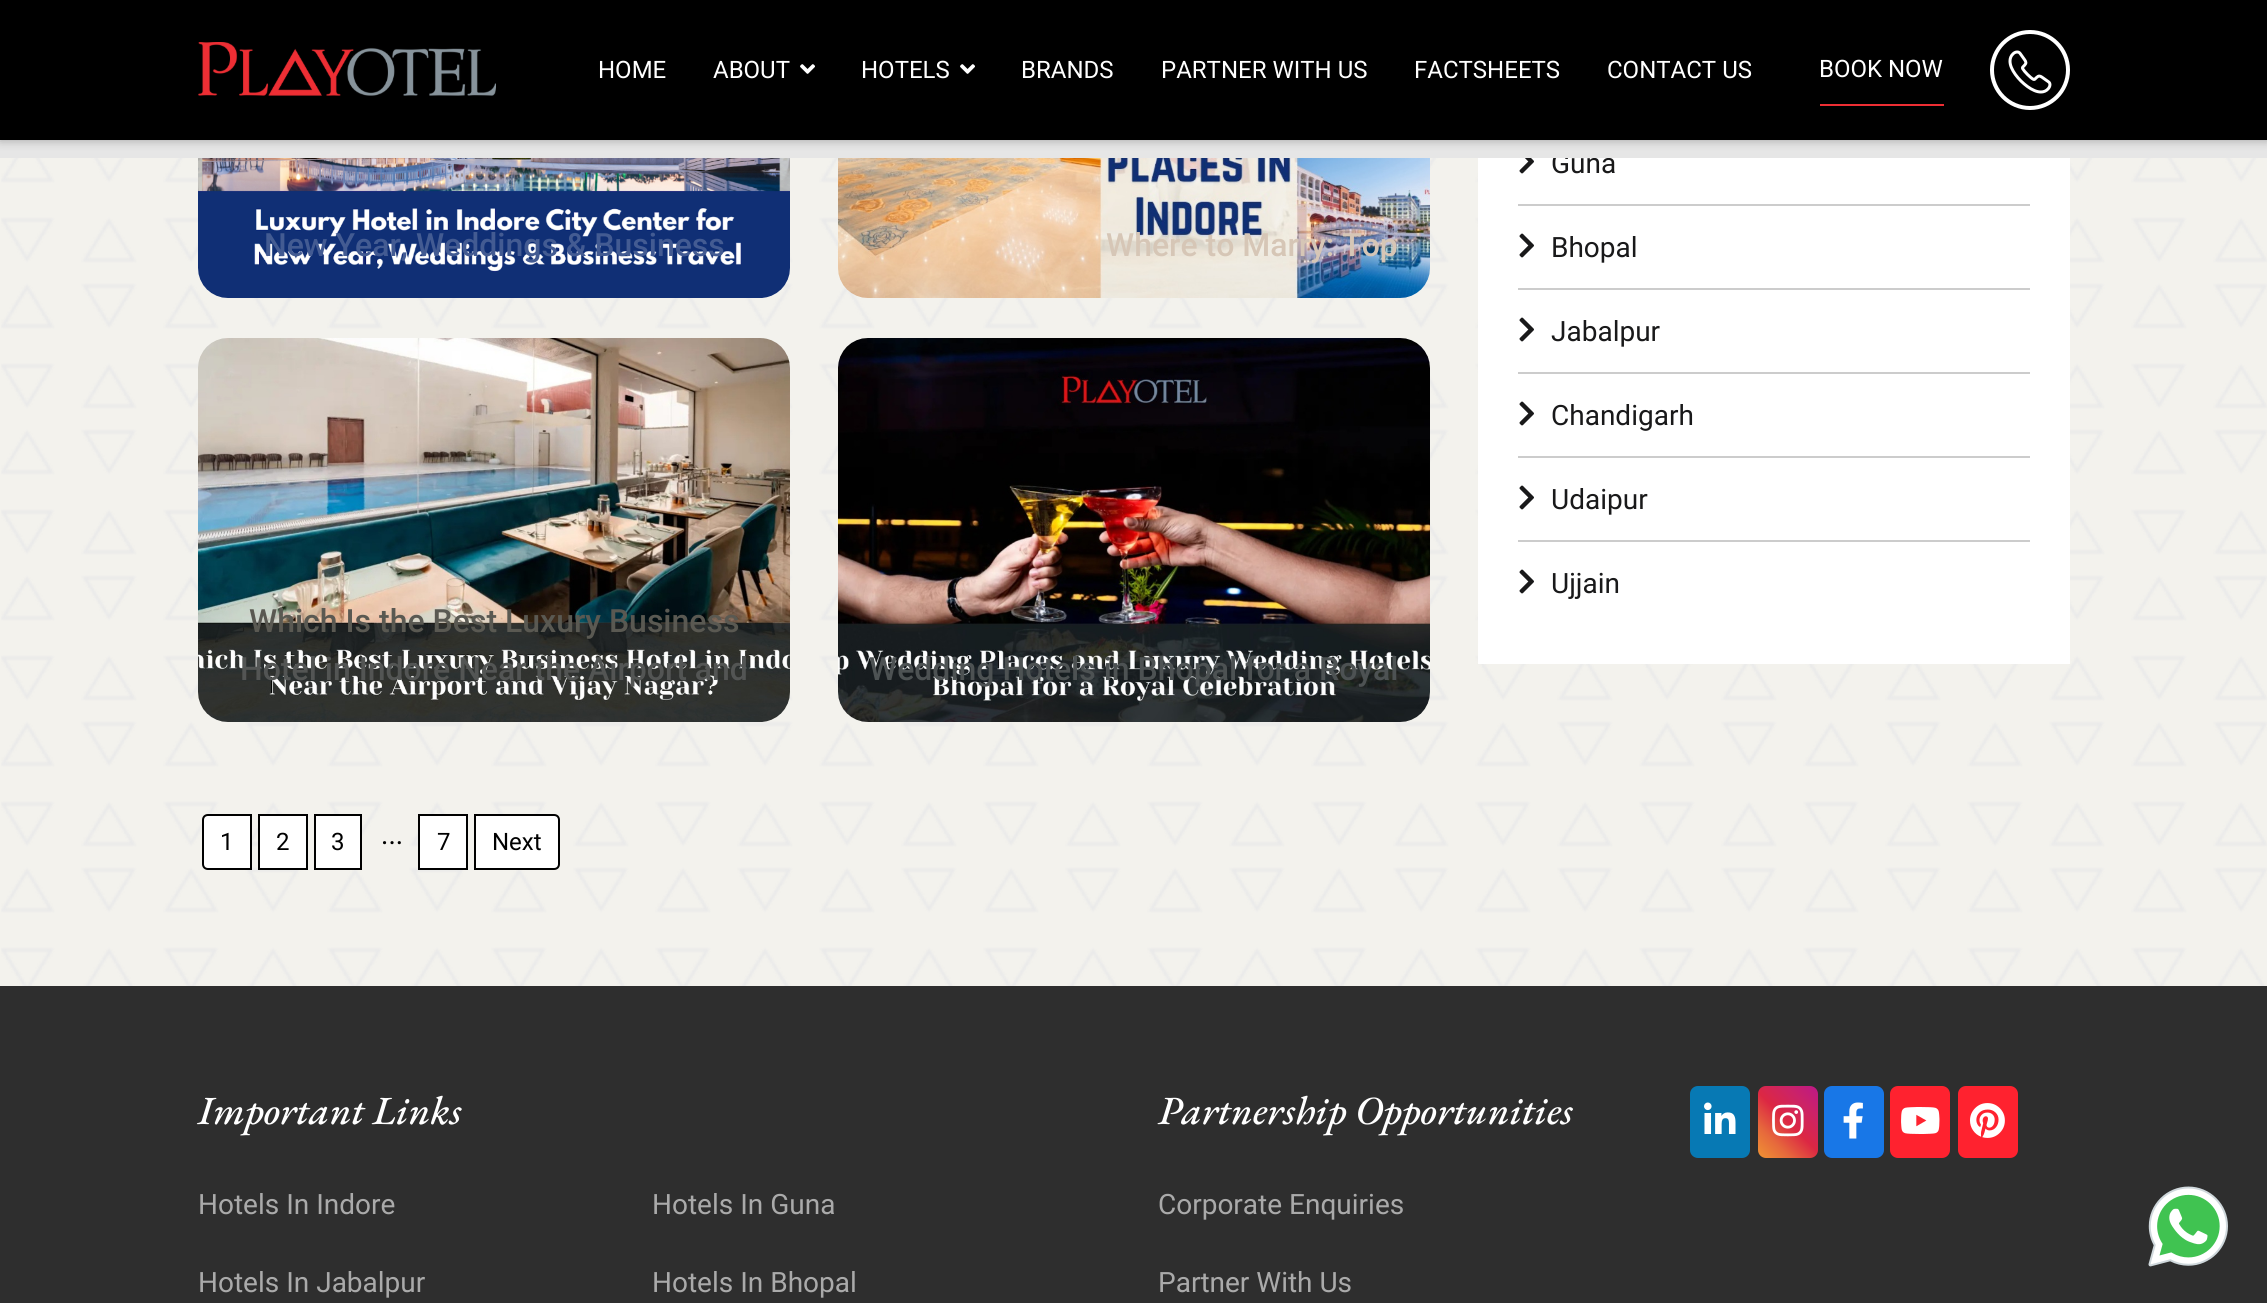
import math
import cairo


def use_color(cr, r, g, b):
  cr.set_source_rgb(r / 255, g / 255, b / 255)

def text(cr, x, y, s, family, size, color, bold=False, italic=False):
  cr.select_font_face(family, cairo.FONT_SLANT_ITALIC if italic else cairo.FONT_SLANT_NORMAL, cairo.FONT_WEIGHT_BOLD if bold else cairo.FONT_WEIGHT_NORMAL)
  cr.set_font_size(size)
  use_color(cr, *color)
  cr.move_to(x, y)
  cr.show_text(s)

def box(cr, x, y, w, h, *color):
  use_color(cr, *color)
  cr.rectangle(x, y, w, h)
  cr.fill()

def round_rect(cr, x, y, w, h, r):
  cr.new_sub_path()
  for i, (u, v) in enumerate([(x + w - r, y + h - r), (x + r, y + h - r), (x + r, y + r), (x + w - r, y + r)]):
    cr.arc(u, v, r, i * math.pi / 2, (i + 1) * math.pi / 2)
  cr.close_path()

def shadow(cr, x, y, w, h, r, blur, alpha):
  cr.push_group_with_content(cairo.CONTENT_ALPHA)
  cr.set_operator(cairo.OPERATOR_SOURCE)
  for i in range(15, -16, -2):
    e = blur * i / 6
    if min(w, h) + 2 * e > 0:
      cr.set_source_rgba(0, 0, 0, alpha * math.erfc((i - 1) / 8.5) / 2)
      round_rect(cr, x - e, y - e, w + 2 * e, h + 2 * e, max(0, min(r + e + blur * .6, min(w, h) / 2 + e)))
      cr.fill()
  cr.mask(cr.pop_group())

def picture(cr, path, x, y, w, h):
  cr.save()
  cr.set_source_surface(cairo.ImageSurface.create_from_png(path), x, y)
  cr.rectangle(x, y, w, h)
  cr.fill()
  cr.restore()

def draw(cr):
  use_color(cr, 243, 242, 237)
  cr.paint()
  picture(cr, "img_01.png", 1, 158, 2266, 828)
  picture(cr, "img_05.png", 198, 158, 592, 140)
  picture(cr, "img_06.png", 838, 158, 592, 140)
  picture(cr, "img_07.png", 198, 338, 592, 384)
  picture(cr, "img_08.png", 838, 338, 592, 384)
  use_color(cr, 255, 255, 255)
  cr.new_path()
  cr.move_to(208, 815)
  cr.line_to(251, 815)
  cr.line_to(251, 869)
  cr.line_to(208, 869)
  cr.curve_to(205, 869, 203, 867, 203, 864)
  cr.line_to(203, 820)
  cr.curve_to(203, 817, 205, 815, 208, 815)
  cr.close_path()
  cr.fill_preserve()
  use_color(cr, 0, 0, 0)
  cr.stroke()
  use_color(cr, 255, 255, 255)
  cr.rectangle(259, 815, 48, 54)
  cr.fill_preserve()
  use_color(cr, 0, 0, 0)
  cr.stroke()
  use_color(cr, 255, 255, 255)
  cr.rectangle(315, 815, 46, 54)
  cr.fill_preserve()
  use_color(cr, 0, 0, 0)
  cr.stroke()
  use_color(cr, 255, 255, 255)
  cr.rectangle(419, 815, 48, 54)
  cr.fill_preserve()
  use_color(cr, 0, 0, 0)
  cr.stroke()
  use_color(cr, 255, 255, 255)
  cr.new_path()
  cr.move_to(475, 815)
  cr.line_to(554, 815)
  cr.curve_to(557, 815, 559, 817, 559, 820)
  cr.line_to(559, 864)
  cr.curve_to(559, 867, 557, 869, 554, 869)
  cr.line_to(475, 869)
  cr.close_path()
  cr.fill_preserve()
  use_color(cr, 0, 0, 0)
  cr.stroke()
  box(cr, 1478, 158, 592, 506, 255, 255, 255)
  box(cr, 1518, 204, 512, 2, 204, 204, 204)
  picture(cr, "img_09.png", 1519, 158, 15, 16)
  box(cr, 1518, 288, 512, 2, 204, 204, 204)
  picture(cr, "img_10.png", 1519, 233, 15, 25)
  box(cr, 1518, 372, 512, 2, 204, 204, 204)
  picture(cr, "img_10.png", 1519, 317, 15, 25)
  box(cr, 1518, 456, 512, 2, 204, 204, 204)
  picture(cr, "img_10.png", 1519, 401, 15, 25)
  box(cr, 1518, 540, 512, 2, 204, 204, 204)
  picture(cr, "img_10.png", 1519, 485, 15, 25)
  picture(cr, "img_10.png", 1519, 569, 15, 25)
  box(cr, 0, 986, 2267, 317, 46, 46, 46)
  use_color(cr, 7, 121, 180)
  round_rect(cr, 1690, 1086, 60, 72, 8)
  cr.fill()
  picture(cr, "img_11.png", 1704, 1102, 32, 32)
  gradient = cairo.LinearGradient(1755, 1155, 1821, 1089)
  gradient.add_color_stop_rgba(0, 0.941, 0.58, 0.2, 1)
  gradient.add_color_stop_rgba(0.25, 0.902, 0.408, 0.235, 1)
  gradient.add_color_stop_rgba(0.5, 0.863, 0.153, 0.263, 1)
  gradient.add_color_stop_rgba(0.75, 0.8, 0.137, 0.4, 1)
  gradient.add_color_stop_rgba(1, 0.737, 0.094, 0.533, 1)
  cr.set_source(gradient)
  round_rect(cr, 1758, 1086, 60, 72, 8)
  cr.fill()
  picture(cr, "img_12.png", 1772, 1104, 32, 33)
  use_color(cr, 24, 119, 231)
  round_rect(cr, 1824, 1086, 60, 72, 8)
  cr.fill()
  picture(cr, "img_13.png", 1843, 1102, 20, 37)
  use_color(cr, 255, 34, 47)
  round_rect(cr, 1890, 1086, 60, 72, 8)
  cr.fill()
  picture(cr, "img_14.png", 1901, 1107, 39, 27)
  round_rect(cr, 1958, 1086, 60, 72, 8)
  cr.fill()
  picture(cr, "img_15.png", 1970, 1103, 35, 35)
  picture(cr, "img_16.png", 2148, 1186, 80, 81)
  text(cr, 264, 256, "New Year, Weddings & Business", "Roboto Medium", 32, (67, 91, 146))
  text(cr, 1106, 256, "Where to Marry: Top", "Roboto Medium", 32, (214, 198, 182))
  text(cr, 249, 632, "Which Is the Best Luxury Business", "Roboto Medium", 32, (90, 89, 82))
  text(cr, 240, 680, "Hotel in Indore Near the Airport and", "Roboto Medium", 32, (83, 85, 84))
  text(cr, 869, 680, "Wedding Hotels in Bhopal for a Royal", "Roboto Medium", 32, (77, 82, 83))
  text(cr, 220, 850, "1", "Roboto", 24, (0, 0, 0))
  text(cr, 276, 850, "2", "Roboto", 24, (0, 0, 0))
  text(cr, 331, 850, "3", "Roboto", 24, (0, 0, 0))
  text(cr, 381, 844, "...", "Roboto", 28, (0, 0, 0))
  text(cr, 437, 850, "7", "Roboto", 24, (0, 0, 0))
  text(cr, 492, 850, "Next", "Roboto", 24, (0, 0, 0))
  text(cr, 1551, 173, "Guna", "Roboto", 28, (25, 25, 26))
  box(cr, 0, 140, 2267, 18, 230, 230, 230)
  use_color(cr, 0, 0, 0)
  shadow(cr, 0, 0, 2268, 140, 0, 5, 0.3)
  box(cr, 0, 0, 2267, 140, 0, 0, 0)
  cr.arc(2030, 70, 38, 0, 2 * math.pi)
  use_color(cr, 255, 255, 255)
  cr.set_line_width(4)
  cr.stroke()
  picture(cr, "img_04.png", 2008, 50, 44, 44)
  text(cr, 1819, 77, "BOOK NOW", "Roboto", 24, (255, 255, 255))
  box(cr, 1820, 104, 124, 2, 238, 46, 52)
  text(cr, 1607, 78, "CONTACT US", "Roboto", 24, (255, 255, 255))
  text(cr, 1414, 78, "FACTSHEETS", "Roboto", 24, (255, 255, 255))
  text(cr, 1161, 78, "PARTNER WITH US", "Roboto", 24, (255, 255, 255))
  text(cr, 1021, 78, "BRANDS", "Roboto", 24, (255, 255, 255))
  picture(cr, "img_03.png", 960, 64, 15, 10)
  text(cr, 861, 78, "HOTELS", "Roboto", 24, (255, 255, 255))
  picture(cr, "img_03.png", 800, 64, 15, 10)
  text(cr, 713, 78, "ABOUT", "Roboto", 24, (255, 255, 255))
  text(cr, 598, 78, "HOME", "Roboto", 24, (255, 255, 255))
  picture(cr, "img_02.png", 198, 42, 298, 54)
  text(cr, 1551, 257, "Bhopal", "Roboto", 28, (25, 25, 26))
  text(cr, 1551, 341, "Jabalpur", "Roboto", 28, (25, 25, 26))
  text(cr, 1551, 425, "Chandigarh", "Roboto", 28, (25, 25, 26))
  text(cr, 1551, 509, "Udaipur", "Roboto", 28, (25, 25, 26))
  text(cr, 1551, 593, "Ujjain", "Roboto", 28, (25, 25, 26))
  text(cr, 198, 1124, "Important Links", "EB Garamond Medium", 40, (255, 255, 255), italic=True)
  text(cr, 198, 1214, "Hotels In Indore", "Roboto", 28, (170, 170, 170))
  text(cr, 652, 1214, "Hotels In Guna", "Roboto", 28, (170, 170, 170))
  text(cr, 198, 1292, "Hotels In Jabalpur", "Roboto", 28, (170, 170, 170))
  text(cr, 652, 1292, "Hotels In Bhopal", "Roboto", 28, (170, 170, 170))
  text(cr, 1158, 1124, "Partnership Opportunities", "EB Garamond Medium", 40, (255, 255, 255), italic=True)
  text(cr, 1158, 1214, "Corporate Enquiries", "Roboto", 28, (170, 170, 170))
  text(cr, 1158, 1292, "Partner With Us", "Roboto", 28, (170, 170, 170))


surface = cairo.ImageSurface(cairo.FORMAT_RGB24, 2267, 1303)
cr = cairo.Context(surface)
options = cairo.FontOptions()
options.set_hint_metrics(cairo.HINT_METRICS_OFF)
options.set_hint_style(cairo.HINT_STYLE_NONE)
cr.set_font_options(options)
cr.set_miter_limit(4)
draw(cr)
surface.write_to_png("out.png")
